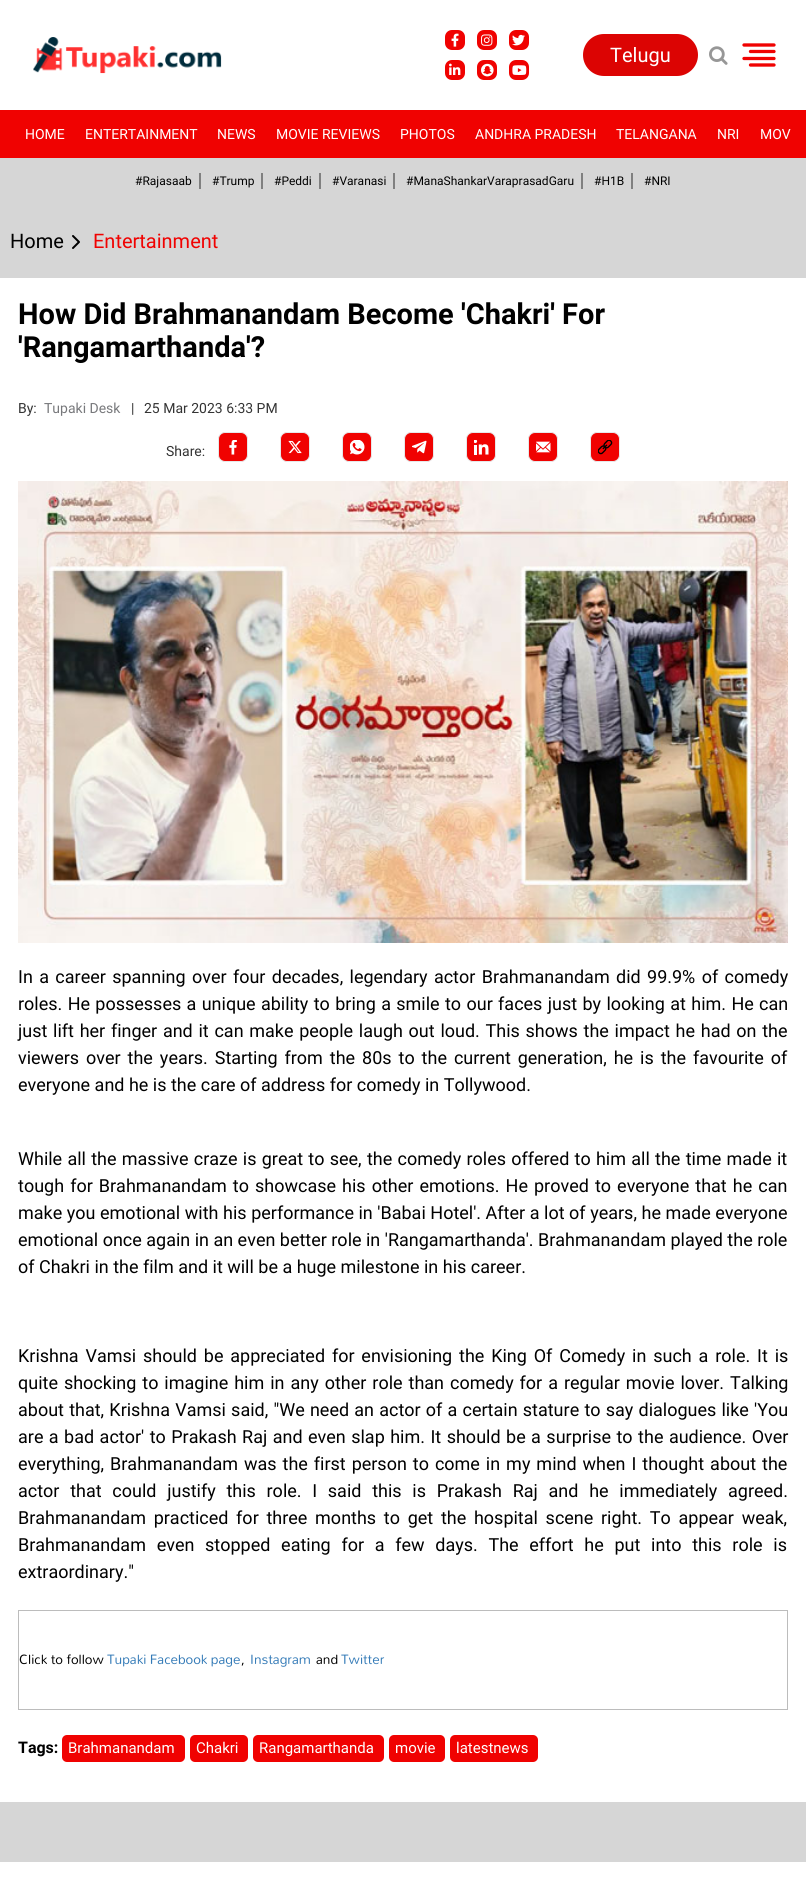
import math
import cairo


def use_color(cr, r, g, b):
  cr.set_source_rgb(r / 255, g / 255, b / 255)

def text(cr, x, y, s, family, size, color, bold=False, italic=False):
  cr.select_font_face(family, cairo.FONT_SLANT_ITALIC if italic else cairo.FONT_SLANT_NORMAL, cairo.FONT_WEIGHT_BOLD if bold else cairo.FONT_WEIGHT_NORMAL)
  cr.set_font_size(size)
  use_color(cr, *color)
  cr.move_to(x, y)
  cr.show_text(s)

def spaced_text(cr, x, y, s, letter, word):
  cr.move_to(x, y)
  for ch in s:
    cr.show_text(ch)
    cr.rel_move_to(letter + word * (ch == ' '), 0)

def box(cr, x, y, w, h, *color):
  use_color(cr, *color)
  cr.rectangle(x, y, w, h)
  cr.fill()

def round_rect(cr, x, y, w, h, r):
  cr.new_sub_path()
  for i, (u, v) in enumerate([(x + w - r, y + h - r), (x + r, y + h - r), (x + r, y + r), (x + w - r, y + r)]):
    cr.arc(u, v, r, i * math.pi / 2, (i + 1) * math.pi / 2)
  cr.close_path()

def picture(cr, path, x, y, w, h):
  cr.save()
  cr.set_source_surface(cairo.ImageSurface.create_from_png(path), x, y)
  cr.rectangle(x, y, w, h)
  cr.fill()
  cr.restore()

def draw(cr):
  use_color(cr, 214, 214, 214)
  cr.paint()
  box(cr, 0, 110, 806, 48, 240, 2, 1)
  box(cr, 0, 0, 806, 110, 255, 255, 255)
  picture(cr, "img_01.png", 33, 37, 189, 37)
  use_color(cr, 240, 2, 1)
  round_rect(cr, 445, 30, 20, 20, 7)
  cr.fill()
  picture(cr, "img_02.png", 451, 33, 8, 14)
  round_rect(cr, 477, 30, 20, 20, 7)
  cr.fill()
  picture(cr, "img_03.png", 481, 34, 12, 12)
  round_rect(cr, 509, 30, 20, 20, 7)
  cr.fill()
  picture(cr, "img_04.png", 512, 34, 13, 12)
  round_rect(cr, 445, 60, 20, 20, 7)
  cr.fill()
  picture(cr, "img_05.png", 449, 63, 12, 12)
  round_rect(cr, 477, 60, 20, 20, 7)
  cr.fill()
  picture(cr, "img_06.png", 481, 63, 13, 14)
  round_rect(cr, 509, 60, 20, 20, 7)
  cr.fill()
  picture(cr, "img_07.png", 512, 65, 15, 10)
  use_color(cr, 220, 4, 3)
  round_rect(cr, 583, 34, 115, 42, 21)
  cr.fill()
  picture(cr, "img_08.png", 709, 46, 19, 19)
  cr.new_path()
  cr.move_to(774, 51.5)
  cr.line_to(750.5, 51.5)
  cr.move_to(774, 45)
  cr.line_to(744, 45)
  cr.move_to(774, 58.5)
  cr.line_to(744, 58.5)
  cr.move_to(774, 65)
  cr.line_to(750.5, 65)
  use_color(cr, 240, 2, 1)
  cr.set_line_width(3.3)
  cr.set_line_cap(cairo.LINE_CAP_ROUND)
  cr.set_line_join(cairo.LINE_JOIN_ROUND)
  cr.stroke()
  box(cr, 199, 173, 2, 16, 128, 128, 128)
  box(cr, 261, 173, 2, 16, 128, 128, 128)
  box(cr, 319, 173, 2, 16, 128, 128, 128)
  box(cr, 393, 173, 2, 16, 128, 128, 128)
  box(cr, 581, 173, 2, 16, 128, 128, 128)
  box(cr, 631, 173, 2, 16, 128, 128, 128)
  cr.new_path()
  cr.move_to(73, 248)
  cr.line_to(79, 242)
  cr.line_to(73, 236)
  use_color(cr, 0, 0, 0)
  cr.set_line_width(2)
  cr.stroke()
  box(cr, 0, 278, 806, 1524, 255, 255, 255)
  use_color(cr, 240, 2, 1)
  round_rect(cr, 218.5, 432.5, 29, 29, 6.5)
  cr.fill_preserve()
  use_color(cr, 231, 232, 233)
  cr.set_line_width(1)
  cr.set_line_cap(cairo.LINE_CAP_BUTT)
  cr.set_line_join(cairo.LINE_JOIN_MITER)
  cr.stroke()
  picture(cr, "img_09.png", 229, 440, 8, 15)
  use_color(cr, 240, 2, 1)
  round_rect(cr, 280.5, 432.5, 29, 29, 6.5)
  cr.fill_preserve()
  use_color(cr, 231, 232, 233)
  cr.stroke()
  picture(cr, "img_10.png", 288, 440, 14, 14)
  use_color(cr, 240, 2, 1)
  round_rect(cr, 342.5, 432.5, 29, 29, 6.5)
  cr.fill_preserve()
  use_color(cr, 231, 232, 233)
  cr.stroke()
  picture(cr, "img_11.png", 350, 440, 15, 15)
  use_color(cr, 240, 2, 1)
  round_rect(cr, 404.5, 432.5, 29, 29, 6.5)
  cr.fill_preserve()
  use_color(cr, 231, 232, 233)
  cr.stroke()
  picture(cr, "img_12.png", 412, 440, 15, 14)
  use_color(cr, 240, 2, 1)
  round_rect(cr, 466.5, 432.5, 29, 29, 6.5)
  cr.fill_preserve()
  use_color(cr, 231, 232, 233)
  cr.stroke()
  picture(cr, "img_13.png", 474, 440, 15, 15)
  use_color(cr, 240, 2, 1)
  round_rect(cr, 528.5, 432.5, 29, 29, 6.5)
  cr.fill_preserve()
  use_color(cr, 231, 232, 233)
  cr.stroke()
  picture(cr, "img_14.png", 536, 441, 15, 12)
  use_color(cr, 240, 2, 1)
  round_rect(cr, 590.5, 432.5, 29, 29, 6.5)
  cr.fill_preserve()
  use_color(cr, 231, 232, 233)
  cr.stroke()
  picture(cr, "img_15.png", 598, 440, 15, 15)
  picture(cr, "img_16.png", 18, 481, 770, 462)
  cr.rectangle(18.5, 1610.5, 769, 99)
  use_color(cr, 188, 188, 188)
  cr.stroke()
  use_color(cr, 240, 2, 1)
  round_rect(cr, 62, 1735, 123, 27, 5)
  cr.fill()
  round_rect(cr, 190, 1735, 58, 27, 5)
  cr.fill()
  round_rect(cr, 253, 1735, 131, 27, 5)
  cr.fill()
  round_rect(cr, 389, 1735, 56, 27, 5)
  cr.fill()
  round_rect(cr, 450, 1735, 88, 27, 5)
  cr.fill()
  box(cr, 0, 1862, 806, 39, 255, 255, 255)
  text(cr, 610, 62, "Telugu", "Roboto", 20, (255, 255, 255))
  text(cr, 25, 139, "HOME", "Roboto", 14, (255, 255, 255))
  text(cr, 85, 139, "ENTERTAINMENT", "Roboto", 14, (255, 255, 255))
  text(cr, 217, 139, "NEWS", "Roboto", 14, (255, 255, 255))
  text(cr, 276, 139, "MOVIE REVIEWS", "Roboto", 14, (255, 255, 255))
  text(cr, 400, 139, "PHOTOS", "Roboto", 14, (255, 255, 255))
  text(cr, 475, 139, "ANDHRA PRADESH", "Roboto", 14, (255, 255, 255))
  text(cr, 616, 139, "TELANGANA", "Roboto", 14, (255, 255, 255))
  text(cr, 717, 139, "NRI", "Roboto", 14, (255, 255, 255))
  text(cr, 760, 139, "MOV", "Roboto", 14, (255, 255, 255))
  text(cr, 135, 185, "#Rajasaab", "Roboto", 12, (0, 0, 0))
  text(cr, 212, 185, "#Trump", "Roboto", 12, (0, 0, 0))
  text(cr, 274, 185, "#Peddi", "Roboto", 12, (0, 0, 0))
  text(cr, 332, 185, "#Varanasi", "Roboto", 12, (0, 0, 0))
  text(cr, 406, 185, "#ManaShankarVaraprasadGaru", "Roboto", 12, (0, 0, 0))
  text(cr, 594, 185, "#H1B", "Roboto", 12, (0, 0, 0))
  text(cr, 644, 185, "#NRI", "Roboto", 12, (0, 0, 0))
  text(cr, 10, 248, "Home", "Roboto", 20, (0, 0, 0))
  text(cr, 93, 248, "Entertainment", "Roboto", 20, (240, 2, 1))
  text(cr, 18, 324, "How Did Brahmanandam Become 'Chakri' For", "Roboto", 29, (0, 0, 0), bold=True)
  text(cr, 18, 357, "'Rangamarthanda'?", "Roboto", 29, (0, 0, 0), bold=True)
  text(cr, 18, 413, "By:", "Roboto", 14, (51, 51, 51))
  text(cr, 44, 413, "Tupaki Desk", "Roboto", 14, (119, 120, 123))
  text(cr, 131, 413, "|", "Roboto", 14, (51, 51, 51))
  text(cr, 144, 413, "25 Mar 2023 6:33 PM", "Roboto", 14, (51, 51, 51))
  text(cr, 166, 456, "Share:", "Roboto", 14, (51, 51, 51))
  cr.set_font_size(18)
  use_color(cr, 0, 0, 0)
  spaced_text(cr, 18, 983, "In a career spanning over four decades, legendary actor Brahmanandam did 99.9% of comedy", 0, 1.9)
  spaced_text(cr, 18, 1010, "roles. He possesses a unique ability to bring a smile to our faces just by looking at him. He can", 0, 0.9)
  spaced_text(cr, 18, 1037, "just lift her finger and it can make people laugh out loud. This shows the impact he had on the", 0, 1.25)
  spaced_text(cr, 18, 1064, "viewers over the years. Starting from the 80s to the current generation, he is the favourite of", 0, 2.5)
  text(cr, 18, 1091, "everyone and he is the care of address for comedy in Tollywood.", "Roboto", 18, (0, 0, 0))
  spaced_text(cr, 18, 1165, "While all the massive craze is great to see, the comedy roles offered to him all the time made it", 0, 0.8)
  spaced_text(cr, 18, 1192, "tough for Brahmanandam to showcase his other emotions. He proved to everyone that he can", 0, 1.6)
  spaced_text(cr, 18, 1219, "make you emotional with his performance in 'Babai Hotel'. After a lot of years, he made everyone", 0, 0.1)
  text(cr, 18, 1246, "emotional once again in an even better role in 'Rangamarthanda'. Brahmanandam played the role", "Roboto", 18, (0, 0, 0))
  text(cr, 18, 1273, "of Chakri in the film and it will be a huge milestone in his career.", "Roboto", 18, (0, 0, 0))
  spaced_text(cr, 18, 1362, "Krishna Vamsi should be appreciated for envisioning the King Of Comedy in such a role. It is", 0, 2.4)
  spaced_text(cr, 18, 1389, "quite shocking to imagine him in any other role than comedy for a regular movie lover. Talking", 0, 1.5)
  spaced_text(cr, 18, 1416, "about that, Krishna Vamsi said, \"We need an actor of a certain stature to say dialogues like 'You", 0, 0.75)
  spaced_text(cr, 18, 1443, "are a bad actor' to Prakash Raj and even slap him. It should be a surprise to the audience. Over", 0, 1)
  spaced_text(cr, 18, 1470, "everything, Brahmanandam was the first person to come in my mind when I thought about the", 0, 1.5)
  spaced_text(cr, 18, 1497, "actor that could justify this role. I said this is Prakash Raj and he immediately agreed.", 0, 6.25)
  spaced_text(cr, 18, 1524, "Brahmanandam practiced for three months to get the hospital scene right. To appear weak,", 0, 3.25)
  spaced_text(cr, 18, 1551, "Brahmanandam even stopped eating for a few days. The effort he put into this role is", 0, 6.25)
  text(cr, 18, 1578, "extraordinary.\"", "Roboto", 18, (0, 0, 0))
  text(cr, 19, 1664, "Click to follow", "Mallanna", 15, (0, 0, 0))
  text(cr, 107, 1664, "Tupaki Facebook page", "Mallanna", 15, (51, 122, 183))
  text(cr, 241, 1664, ",", "Mallanna", 15, (0, 0, 0))
  text(cr, 250, 1664, "Instagram", "Mallanna", 15, (51, 122, 183))
  text(cr, 316, 1664, "and", "Mallanna", 15, (0, 0, 0))
  text(cr, 341, 1664, "Twitter", "Mallanna", 15, (51, 122, 183))
  text(cr, 18, 1753, "Tags:", "Roboto", 16, (0, 0, 0), bold=True)
  text(cr, 68, 1753, "Brahmanandam", "Roboto", 15, (255, 255, 255))
  text(cr, 196, 1753, "Chakri", "Roboto", 15, (255, 255, 255))
  text(cr, 259, 1753, "Rangamarthanda", "Roboto", 15, (255, 255, 255))
  text(cr, 395, 1753, "movie", "Roboto", 15, (255, 255, 255))
  text(cr, 456, 1753, "latestnews", "Roboto", 15, (255, 255, 255))


surface = cairo.ImageSurface(cairo.FORMAT_RGB24, 806, 1901)
cr = cairo.Context(surface)
options = cairo.FontOptions()
options.set_hint_metrics(cairo.HINT_METRICS_OFF)
options.set_hint_style(cairo.HINT_STYLE_NONE)
cr.set_font_options(options)
cr.set_miter_limit(4)
draw(cr)
surface.write_to_png("out.png")
